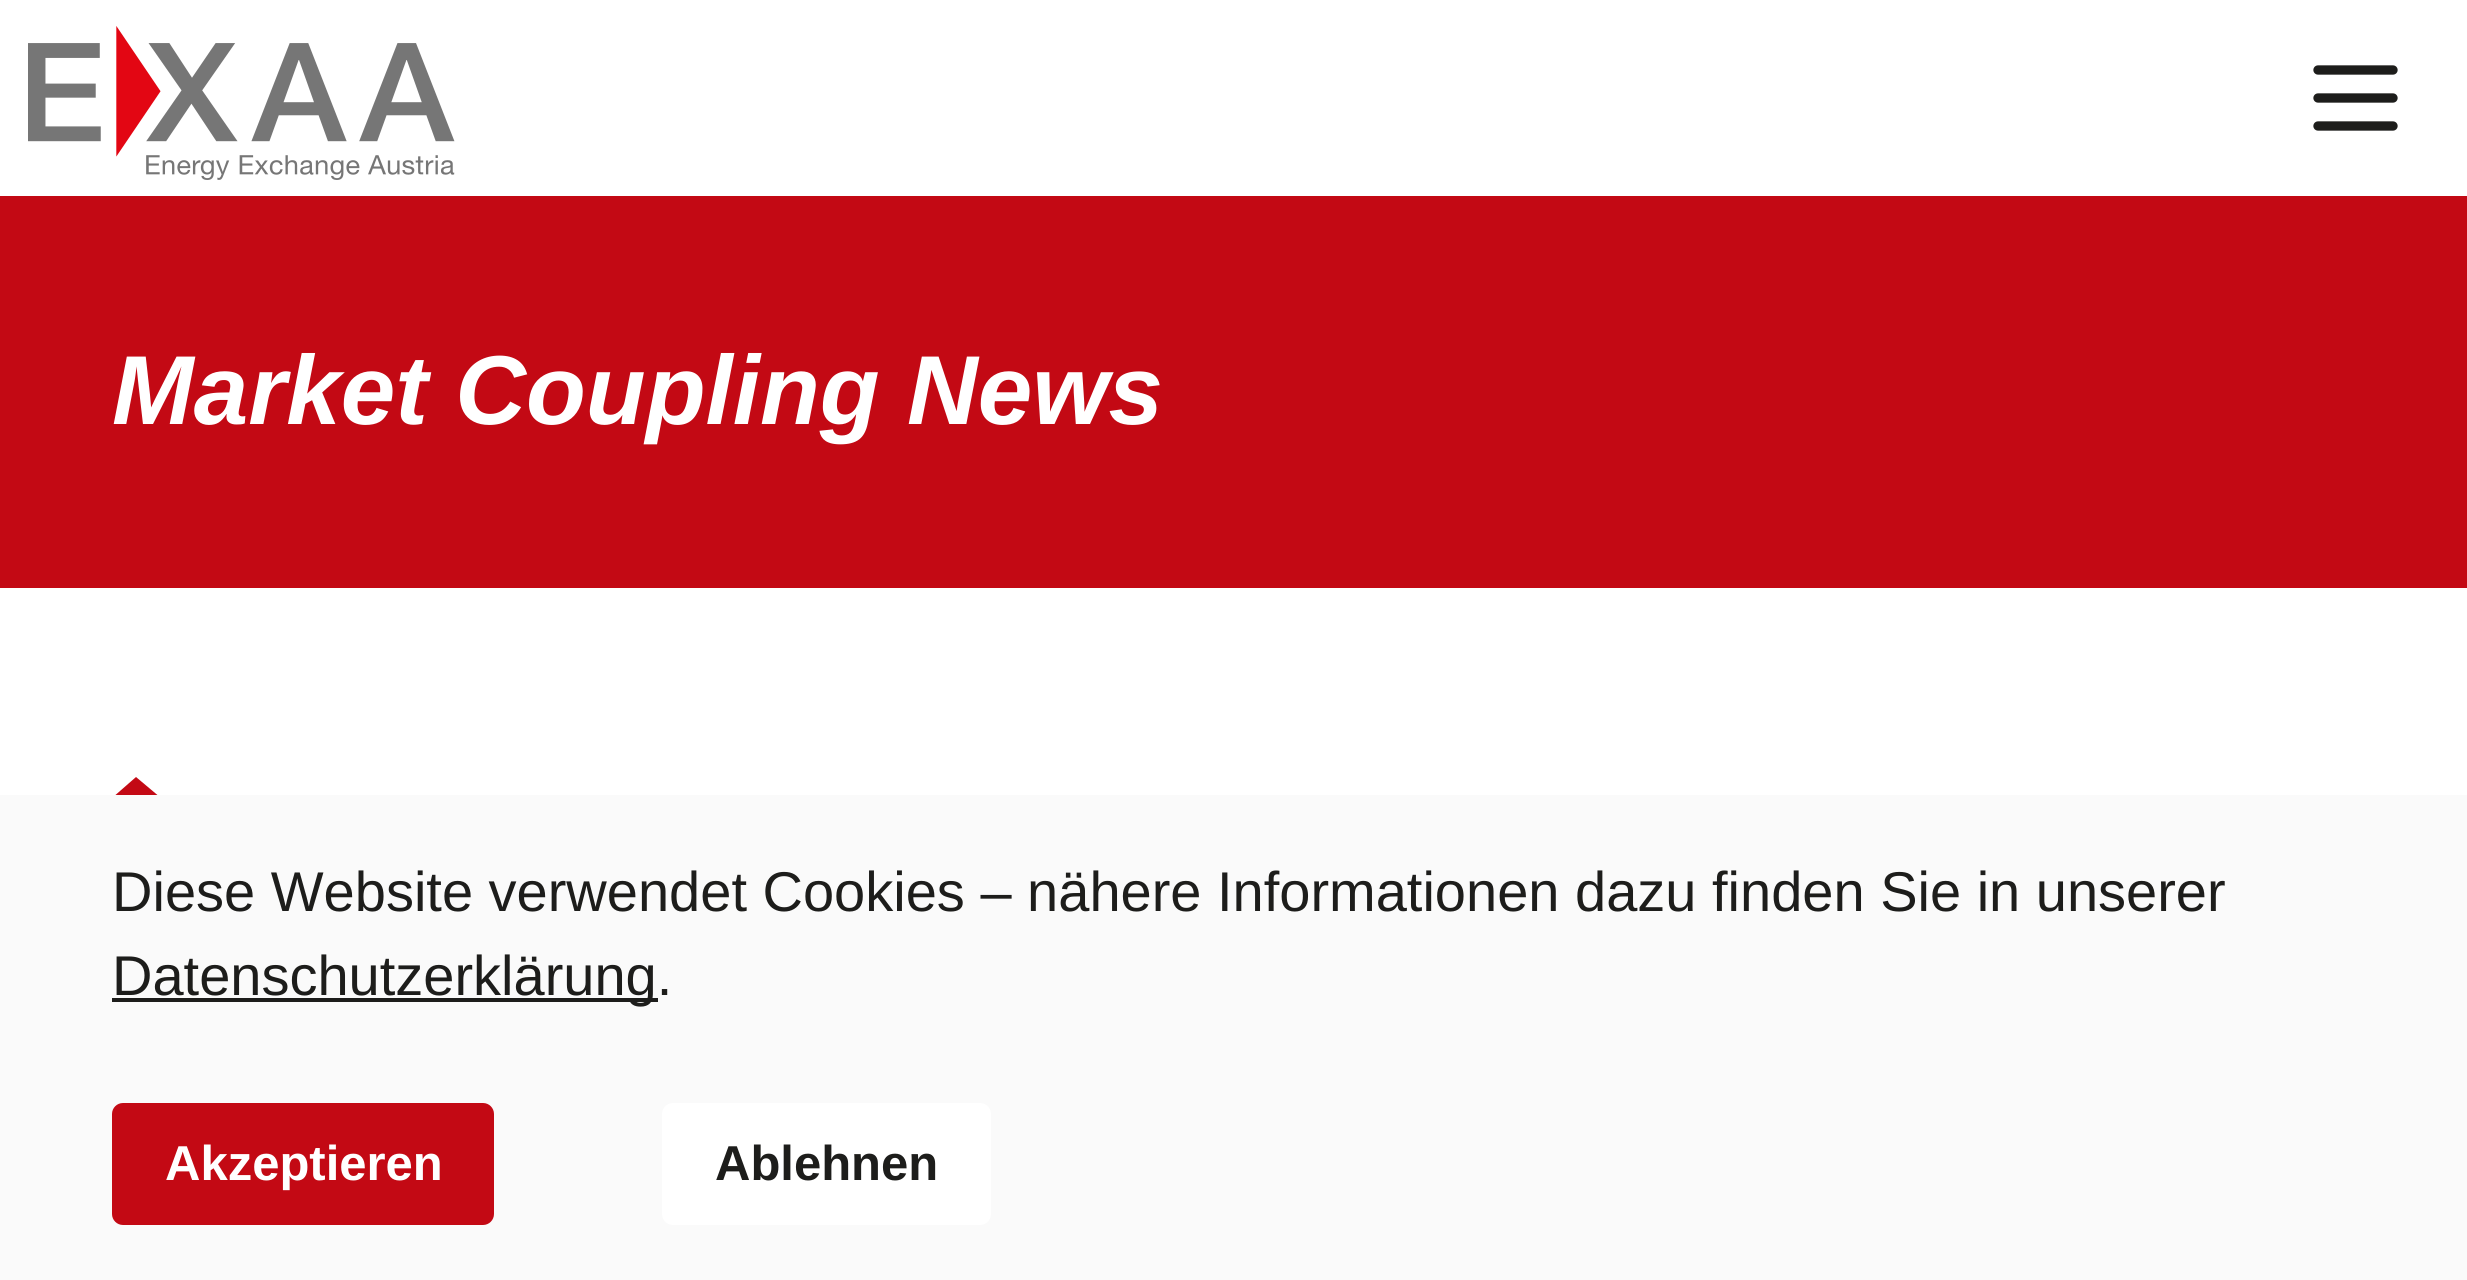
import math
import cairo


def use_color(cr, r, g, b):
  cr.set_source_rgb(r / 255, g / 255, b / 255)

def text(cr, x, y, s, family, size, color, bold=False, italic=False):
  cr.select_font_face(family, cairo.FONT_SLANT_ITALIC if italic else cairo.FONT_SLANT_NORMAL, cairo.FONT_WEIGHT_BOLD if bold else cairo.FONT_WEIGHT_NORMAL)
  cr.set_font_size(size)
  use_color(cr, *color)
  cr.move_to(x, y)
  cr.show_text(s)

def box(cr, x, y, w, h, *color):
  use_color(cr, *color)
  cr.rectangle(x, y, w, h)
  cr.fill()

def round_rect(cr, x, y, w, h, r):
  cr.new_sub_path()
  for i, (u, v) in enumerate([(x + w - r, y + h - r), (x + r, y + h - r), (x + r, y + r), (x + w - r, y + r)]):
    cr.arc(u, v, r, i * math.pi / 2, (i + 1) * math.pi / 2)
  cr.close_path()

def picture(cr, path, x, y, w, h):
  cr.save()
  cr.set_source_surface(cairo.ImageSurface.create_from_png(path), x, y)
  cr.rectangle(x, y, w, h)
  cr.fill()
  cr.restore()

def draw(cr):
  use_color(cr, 255, 255, 255)
  cr.paint()
  picture(cr, "img_01.png", 28, 26, 427, 154)
  cr.new_path()
  cr.move_to(2318, 70)
  cr.line_to(2393, 70)
  cr.move_to(2318, 98)
  cr.line_to(2393, 98)
  cr.move_to(2318, 126)
  cr.line_to(2393, 126)
  use_color(cr, 29, 29, 27)
  cr.set_line_width(9.3)
  cr.set_line_cap(cairo.LINE_CAP_ROUND)
  cr.set_line_join(cairo.LINE_JOIN_ROUND)
  cr.stroke()
  box(cr, 0, 196, 2467, 392, 195, 9, 20)
  cr.set_fill_rule(cairo.FILL_RULE_EVEN_ODD)
  cr.new_path()
  cr.move_to(112, 798)
  cr.line_to(161, 798)
  cr.line_to(136, 777)
  cr.close_path()
  cr.fill()
  box(cr, 0, 795, 2467, 485, 250, 250, 250)
  box(cr, 112, 998, 546, 4, 29, 29, 27)
  use_color(cr, 195, 9, 20)
  round_rect(cr, 114, 1105, 378, 118, 9)
  cr.fill_preserve()
  cr.set_line_width(4)
  cr.set_line_cap(cairo.LINE_CAP_BUTT)
  cr.set_line_join(cairo.LINE_JOIN_MITER)
  cr.stroke()
  use_color(cr, 255, 255, 255)
  round_rect(cr, 662, 1103, 329, 122, 11)
  cr.fill()
  text(cr, 112, 424, "Market Coupling News", "Liberation Sans", 98, (255, 255, 255), bold=True, italic=True)
  text(cr, 112, 911, "Diese Website verwendet Cookies – nähere Informationen dazu finden Sie in unserer", "Liberation Sans", 56, (29, 29, 27))
  text(cr, 112, 995, "Datenschutzerklärung.", "Liberation Sans", 56, (29, 29, 27))
  text(cr, 165, 1180, "Akzeptieren", "Liberation Sans", 49, (255, 255, 255), bold=True)
  text(cr, 715, 1180, "Ablehnen", "Liberation Sans", 49, (29, 29, 27), bold=True)


surface = cairo.ImageSurface(cairo.FORMAT_RGB24, 2467, 1280)
cr = cairo.Context(surface)
options = cairo.FontOptions()
options.set_hint_metrics(cairo.HINT_METRICS_OFF)
options.set_hint_style(cairo.HINT_STYLE_NONE)
cr.set_font_options(options)
cr.set_miter_limit(4)
draw(cr)
surface.write_to_png("out.png")
